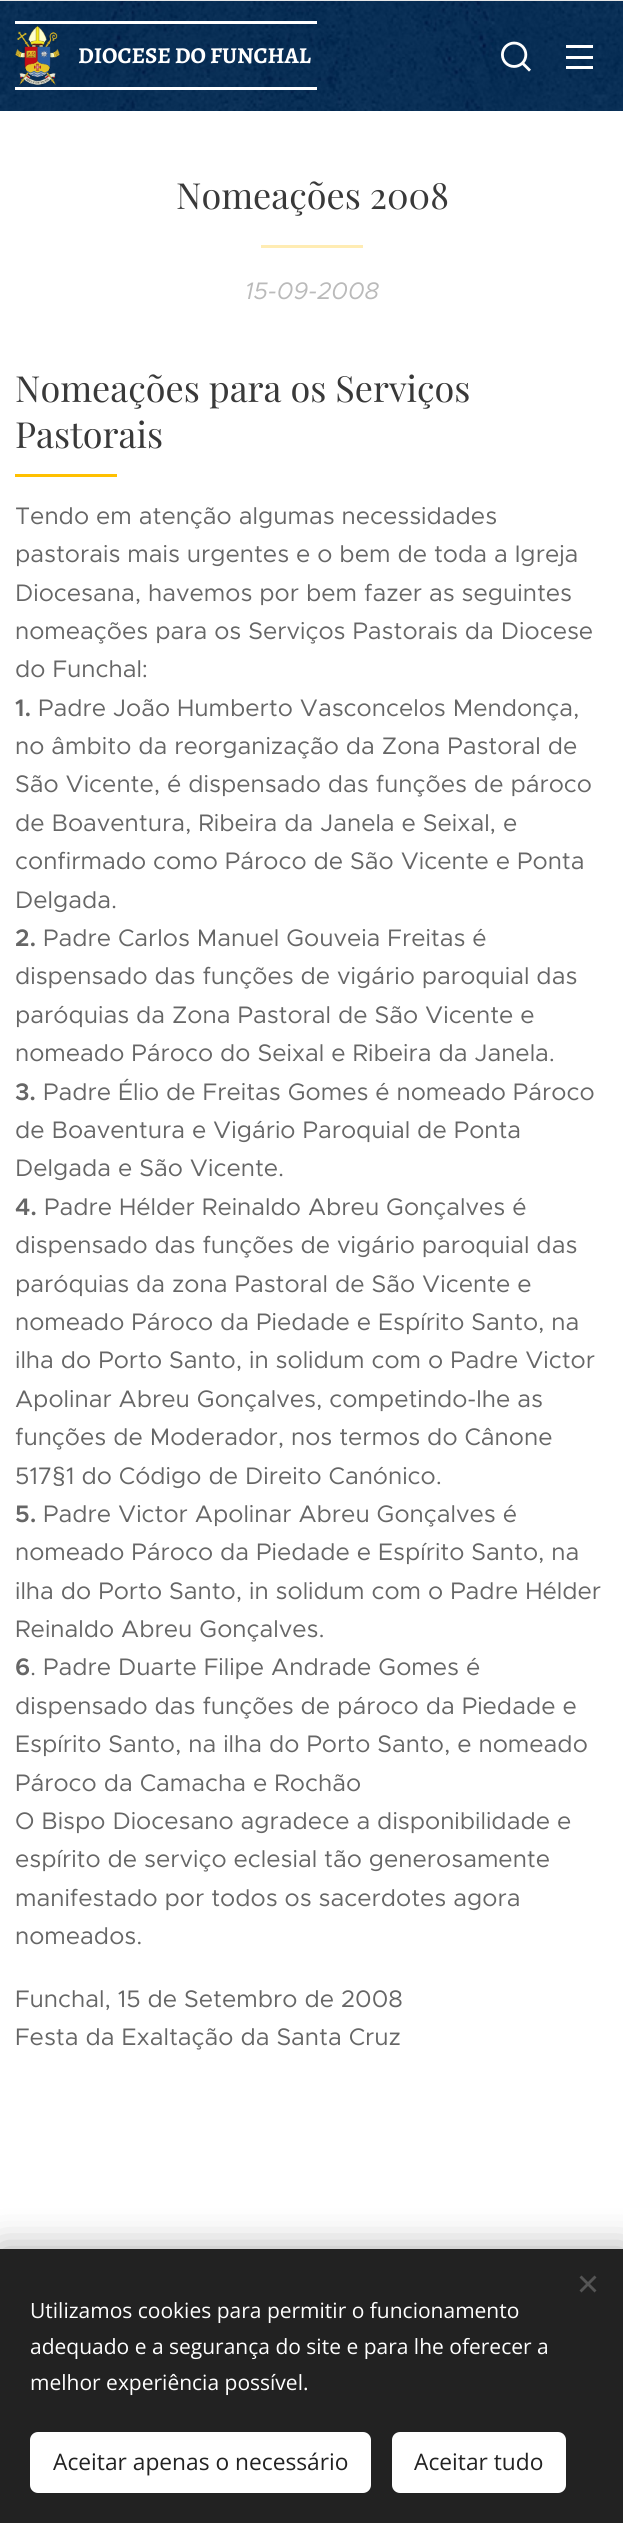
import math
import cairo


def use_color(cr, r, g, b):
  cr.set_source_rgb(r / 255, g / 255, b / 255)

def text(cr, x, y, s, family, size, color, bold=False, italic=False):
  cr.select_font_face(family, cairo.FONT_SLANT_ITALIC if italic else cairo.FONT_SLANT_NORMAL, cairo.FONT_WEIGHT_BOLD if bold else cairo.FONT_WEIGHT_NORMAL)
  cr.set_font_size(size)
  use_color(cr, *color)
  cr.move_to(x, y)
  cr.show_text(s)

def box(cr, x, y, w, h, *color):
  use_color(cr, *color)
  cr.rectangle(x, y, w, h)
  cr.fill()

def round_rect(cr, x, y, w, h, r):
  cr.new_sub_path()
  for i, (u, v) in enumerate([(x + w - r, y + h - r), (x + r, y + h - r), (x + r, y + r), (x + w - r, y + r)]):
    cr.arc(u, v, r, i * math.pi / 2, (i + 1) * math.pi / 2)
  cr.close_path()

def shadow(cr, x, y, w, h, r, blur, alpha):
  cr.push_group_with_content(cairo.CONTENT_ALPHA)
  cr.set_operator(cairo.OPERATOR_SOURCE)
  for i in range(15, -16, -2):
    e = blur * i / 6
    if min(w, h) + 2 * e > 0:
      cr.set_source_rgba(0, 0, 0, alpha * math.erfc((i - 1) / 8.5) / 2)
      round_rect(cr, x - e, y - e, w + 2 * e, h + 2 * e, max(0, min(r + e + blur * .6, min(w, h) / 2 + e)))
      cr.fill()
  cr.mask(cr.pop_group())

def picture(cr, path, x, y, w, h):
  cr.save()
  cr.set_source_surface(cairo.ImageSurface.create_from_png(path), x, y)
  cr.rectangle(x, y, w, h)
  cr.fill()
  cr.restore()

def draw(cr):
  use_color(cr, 255, 255, 255)
  cr.paint()
  picture(cr, "img_01.png", 0, 1, 623, 110)
  box(cr, 0, 0, 623, 1, 232, 232, 232)
  picture(cr, "img_02.png", 501, 41, 30, 31)
  box(cr, 566, 56, 27, 3, 255, 255, 255)
  box(cr, 566, 45, 27, 3, 255, 255, 255)
  box(cr, 566, 66, 27, 3, 255, 255, 255)
  box(cr, 15, 21, 302, 3, 255, 255, 255)
  box(cr, 15, 87, 302, 3, 255, 255, 255)
  picture(cr, "img_03.png", 15, 26, 45, 59)
  box(cr, 261, 245, 102, 3, 255, 236, 179)
  box(cr, 15, 474, 102, 3, 255, 192, 0)
  use_color(cr, 0, 0, 0)
  shadow(cr, 0, 2249, 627, 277, 0, 19, 0.33)
  box(cr, 0, 2249, 623, 274, 34, 34, 34)
  use_color(cr, 85, 85, 85)
  cr.new_path()
  cr.move_to(579.5, 2290.5)
  cr.line_to(594.5, 2275.5)
  cr.line_to(596.5, 2277.5)
  cr.line_to(581.5, 2292.5)
  cr.close_path()
  cr.fill()
  cr.new_path()
  cr.move_to(581.5, 2275.5)
  cr.line_to(596.5, 2290.5)
  cr.line_to(594.5, 2292.5)
  cr.line_to(579.5, 2277.5)
  cr.close_path()
  cr.fill()
  use_color(cr, 255, 255, 255)
  round_rect(cr, 30, 2432, 341, 61, 8)
  cr.fill()
  round_rect(cr, 392, 2432, 174, 61, 8)
  cr.fill()
  text(cr, 78, 63, "DIOCESE DO FUNCHAL", "Alegreya", 22.75, (255, 255, 255), bold=True)
  text(cr, 176, 209, "Nomeações 2008", "Playfair Display", 36, (57, 57, 57))
  text(cr, 245, 299, "15-09-2008", "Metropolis", 24, (186, 186, 186), italic=True)
  text(cr, 15, 402, "Nomeações para os Serviços", "Playfair Display", 36, (57, 57, 57))
  text(cr, 15, 448, "Pastorais", "Playfair Display", 36, (57, 57, 57))
  text(cr, 15, 524, "Tendo em atenção algumas necessidades", "Metropolis", 24, (102, 102, 102))
  text(cr, 15, 562, "pastorais mais urgentes e o bem de toda a Igreja", "Metropolis", 24, (102, 102, 102))
  text(cr, 15, 601, "Diocesana, havemos por bem fazer as seguintes", "Metropolis", 24, (102, 102, 102))
  text(cr, 15, 639, "nomeações para os Serviços Pastorais da Diocese", "Metropolis", 24, (102, 102, 102))
  text(cr, 15, 677, "do Funchal:", "Metropolis", 24, (102, 102, 102))
  text(cr, 15, 716, "1.", "Metropolis SemiBold", 24, (102, 102, 102))
  text(cr, 38, 716, "Padre João Humberto Vasconcelos Mendonça,", "Metropolis", 24, (102, 102, 102))
  text(cr, 15, 754, "no âmbito da reorganização da Zona Pastoral de", "Metropolis", 24, (102, 102, 102))
  text(cr, 15, 792, "São Vicente, é dispensado das funções de pároco", "Metropolis", 24, (102, 102, 102))
  text(cr, 15, 831, "de Boaventura, Ribeira da Janela e Seixal, e", "Metropolis", 24, (102, 102, 102))
  text(cr, 15, 869, "confirmado como Pároco de São Vicente e Ponta", "Metropolis", 24, (102, 102, 102))
  text(cr, 15, 908, "Delgada.", "Metropolis", 24, (102, 102, 102))
  text(cr, 15, 946, "2.", "Metropolis SemiBold", 24, (102, 102, 102))
  text(cr, 43, 946, "Padre Carlos Manuel Gouveia Freitas é", "Metropolis", 24, (102, 102, 102))
  text(cr, 15, 984, "dispensado das funções de vigário paroquial das", "Metropolis", 24, (102, 102, 102))
  text(cr, 15, 1023, "paróquias da Zona Pastoral de São Vicente e", "Metropolis", 24, (102, 102, 102))
  text(cr, 15, 1061, "nomeado Pároco do Seixal e Ribeira da Janela.", "Metropolis", 24, (102, 102, 102))
  text(cr, 15, 1100, "3.", "Metropolis SemiBold", 24, (102, 102, 102))
  text(cr, 43, 1100, "Padre Élio de Freitas Gomes é nomeado Pároco", "Metropolis", 24, (102, 102, 102))
  text(cr, 15, 1138, "de Boaventura e Vigário Paroquial de Ponta", "Metropolis", 24, (102, 102, 102))
  text(cr, 15, 1176, "Delgada e São Vicente.", "Metropolis", 24, (102, 102, 102))
  text(cr, 15, 1215, "4.", "Metropolis SemiBold", 24, (102, 102, 102))
  text(cr, 44, 1215, "Padre Hélder Reinaldo Abreu Gonçalves é", "Metropolis", 24, (102, 102, 102))
  text(cr, 15, 1253, "dispensado das funções de vigário paroquial das", "Metropolis", 24, (102, 102, 102))
  text(cr, 15, 1292, "paróquias da zona Pastoral de São Vicente e", "Metropolis", 24, (102, 102, 102))
  text(cr, 15, 1330, "nomeado Pároco da Piedade e Espírito Santo, na", "Metropolis", 24, (102, 102, 102))
  text(cr, 15, 1368, "ilha do Porto Santo, in solidum com o Padre Victor", "Metropolis", 24, (102, 102, 102))
  text(cr, 15, 1407, "Apolinar Abreu Gonçalves, competindo-lhe as", "Metropolis", 24, (102, 102, 102))
  text(cr, 15, 1445, "funções de Moderador, nos termos do Cânone", "Metropolis", 24, (102, 102, 102))
  text(cr, 15, 1484, "517", "Metropolis", 24, (102, 102, 102))
  text(cr, 52, 1484, "§", "Liberation Sans", 24, (102, 102, 102))
  text(cr, 66, 1484, "1 do Código de Direito Canónico.", "Metropolis", 24, (102, 102, 102))
  text(cr, 15, 1522, "5.", "Metropolis SemiBold", 24, (102, 102, 102))
  text(cr, 43, 1522, "Padre Victor Apolinar Abreu Gonçalves é", "Metropolis", 24, (102, 102, 102))
  text(cr, 15, 1560, "nomeado Pároco da Piedade e Espírito Santo, na", "Metropolis", 24, (102, 102, 102))
  text(cr, 15, 1599, "ilha do Porto Santo, in solidum com o Padre Hélder", "Metropolis", 24, (102, 102, 102))
  text(cr, 15, 1637, "Reinaldo Abreu Gonçalves.", "Metropolis", 24, (102, 102, 102))
  text(cr, 15, 1675, "6", "Metropolis SemiBold", 24, (102, 102, 102))
  text(cr, 30, 1675, ". Padre Duarte Filipe Andrade Gomes é", "Metropolis", 24, (102, 102, 102))
  text(cr, 15, 1714, "dispensado das funções de pároco da Piedade e", "Metropolis", 24, (102, 102, 102))
  text(cr, 15, 1752, "Espírito Santo, na ilha do Porto Santo, e nomeado", "Metropolis", 24, (102, 102, 102))
  text(cr, 15, 1791, "Pároco da Camacha e Rochão", "Metropolis", 24, (102, 102, 102))
  text(cr, 15, 1829, "O Bispo Diocesano agradece a disponibilidade e", "Metropolis", 24, (102, 102, 102))
  text(cr, 15, 1867, "espírito de serviço eclesial tão generosamente", "Metropolis", 24, (102, 102, 102))
  text(cr, 15, 1906, "manifestado por todos os sacerdotes agora", "Metropolis", 24, (102, 102, 102))
  text(cr, 15, 1944, "nomeados.", "Metropolis", 24, (102, 102, 102))
  text(cr, 15, 2007, "Funchal, 15 de Setembro de 2008", "Metropolis", 24, (102, 102, 102))
  text(cr, 15, 2045, "Festa da Exaltação da Santa Cruz", "Metropolis", 24, (102, 102, 102))
  text(cr, 30, 2318, "Utilizamos cookies para permitir o funcionamento", "Open Sans", 21, (255, 255, 255))
  text(cr, 30, 2354, "adequado e a segurança do site e para lhe oferecer a", "Open Sans", 21, (255, 255, 255))
  text(cr, 30, 2390, "melhor experiência possível.", "Open Sans", 21, (255, 255, 255))
  text(cr, 53, 2470, "Aceitar apenas o necessário", "Open Sans", 22.75, (34, 34, 34))
  text(cr, 414, 2470, "Aceitar tudo", "Open Sans", 22.75, (34, 34, 34))


surface = cairo.ImageSurface(cairo.FORMAT_RGB24, 623, 2523)
cr = cairo.Context(surface)
options = cairo.FontOptions()
options.set_hint_metrics(cairo.HINT_METRICS_OFF)
options.set_hint_style(cairo.HINT_STYLE_NONE)
cr.set_font_options(options)
cr.set_miter_limit(4)
draw(cr)
surface.write_to_png("out.png")
